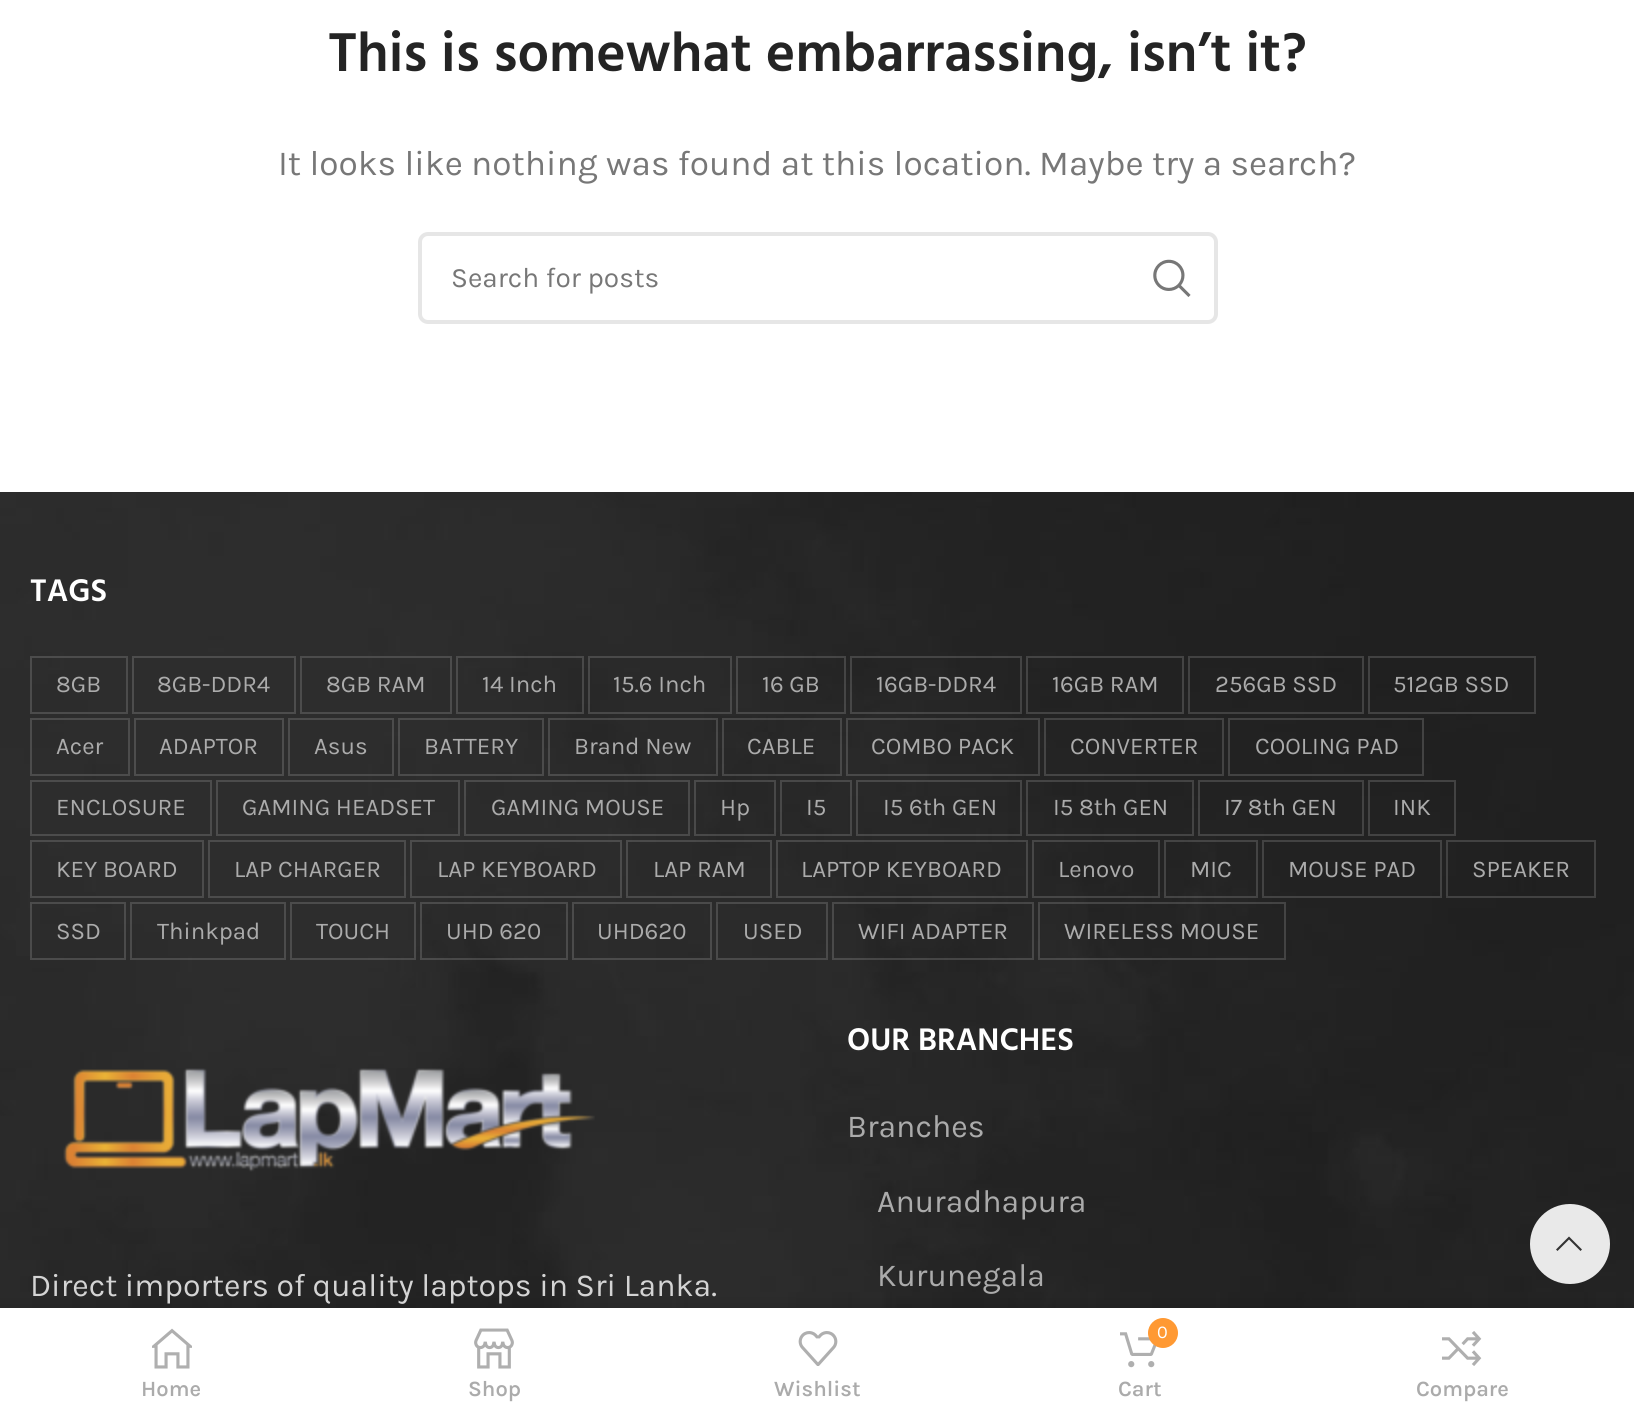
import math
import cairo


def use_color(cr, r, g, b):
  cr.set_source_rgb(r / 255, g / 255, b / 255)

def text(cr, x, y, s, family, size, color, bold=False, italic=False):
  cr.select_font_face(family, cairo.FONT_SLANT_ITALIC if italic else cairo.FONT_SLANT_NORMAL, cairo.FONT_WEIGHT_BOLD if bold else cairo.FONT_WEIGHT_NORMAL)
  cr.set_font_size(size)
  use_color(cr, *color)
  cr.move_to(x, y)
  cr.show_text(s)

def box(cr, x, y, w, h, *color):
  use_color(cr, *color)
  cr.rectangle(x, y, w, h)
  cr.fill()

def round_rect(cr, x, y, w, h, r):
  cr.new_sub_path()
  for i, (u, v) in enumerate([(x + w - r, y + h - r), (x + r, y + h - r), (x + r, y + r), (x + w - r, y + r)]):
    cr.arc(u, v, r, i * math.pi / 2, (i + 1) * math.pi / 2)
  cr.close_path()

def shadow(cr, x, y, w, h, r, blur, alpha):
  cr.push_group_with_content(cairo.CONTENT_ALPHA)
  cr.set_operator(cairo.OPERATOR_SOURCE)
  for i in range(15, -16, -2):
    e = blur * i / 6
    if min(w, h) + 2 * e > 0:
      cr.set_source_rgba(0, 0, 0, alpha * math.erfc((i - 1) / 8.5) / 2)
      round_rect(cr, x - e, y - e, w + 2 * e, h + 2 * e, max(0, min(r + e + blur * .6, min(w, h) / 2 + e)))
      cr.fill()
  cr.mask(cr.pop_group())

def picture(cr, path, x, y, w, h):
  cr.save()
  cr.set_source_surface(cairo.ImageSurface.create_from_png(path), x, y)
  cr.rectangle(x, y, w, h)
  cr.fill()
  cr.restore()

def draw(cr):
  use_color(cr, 255, 255, 255)
  cr.paint()
  round_rect(cr, 420, 234, 796, 88, 8)
  use_color(cr, 230, 230, 230)
  cr.set_line_width(4)
  cr.stroke()
  picture(cr, "img_01.png", 1153, 259, 38, 38)
  picture(cr, "img_02.png", 0, 492, 1634, 816)
  cr.rectangle(31, 657, 96, 56)
  use_color(cr, 76, 76, 76)
  cr.set_line_width(2)
  cr.stroke()
  cr.rectangle(133, 657, 162, 56)
  use_color(cr, 77, 77, 77)
  cr.stroke()
  cr.rectangle(301, 657, 150, 56)
  use_color(cr, 76, 76, 76)
  cr.stroke()
  cr.rectangle(457, 657, 126, 56)
  cr.set_source_rgba(1, 1, 1, 0.15)
  cr.stroke()
  cr.rectangle(589, 657, 142, 56)
  cr.stroke()
  cr.rectangle(737, 657, 108, 56)
  cr.stroke()
  cr.rectangle(851, 657, 170, 56)
  cr.stroke()
  cr.rectangle(1027, 657, 156, 56)
  use_color(cr, 68, 68, 68)
  cr.stroke()
  cr.rectangle(1189, 657, 174, 56)
  use_color(cr, 66, 66, 66)
  cr.stroke()
  cr.rectangle(1369, 657, 166, 56)
  cr.stroke()
  cr.rectangle(31, 719, 98, 56)
  use_color(cr, 76, 76, 76)
  cr.stroke()
  cr.rectangle(135, 719, 148, 56)
  use_color(cr, 77, 77, 77)
  cr.stroke()
  cr.rectangle(289, 719, 104, 56)
  use_color(cr, 76, 76, 76)
  cr.stroke()
  cr.rectangle(399, 719, 144, 56)
  cr.set_source_rgba(1, 1, 1, 0.15)
  cr.stroke()
  cr.rectangle(549, 719, 168, 56)
  cr.stroke()
  cr.rectangle(723, 719, 118, 56)
  cr.stroke()
  cr.rectangle(847, 719, 192, 56)
  cr.stroke()
  cr.rectangle(1045, 719, 178, 56)
  cr.stroke()
  cr.rectangle(1229, 719, 194, 56)
  use_color(cr, 67, 67, 67)
  cr.stroke()
  cr.rectangle(31, 781, 180, 54)
  use_color(cr, 76, 76, 76)
  cr.stroke()
  cr.rectangle(217, 781, 242, 54)
  cr.stroke()
  cr.rectangle(465, 781, 224, 54)
  cr.set_source_rgba(1, 1, 1, 0.15)
  cr.stroke()
  cr.rectangle(695, 781, 80, 54)
  cr.stroke()
  cr.rectangle(781, 781, 70, 54)
  cr.stroke()
  cr.rectangle(857, 781, 164, 54)
  cr.stroke()
  cr.rectangle(1027, 781, 166, 54)
  cr.stroke()
  cr.rectangle(1199, 781, 164, 54)
  cr.stroke()
  cr.rectangle(1369, 781, 86, 54)
  use_color(cr, 67, 67, 67)
  cr.stroke()
  cr.rectangle(31, 841, 172, 56)
  use_color(cr, 76, 76, 76)
  cr.stroke()
  cr.rectangle(209, 841, 196, 56)
  cr.stroke()
  cr.rectangle(411, 841, 210, 56)
  cr.stroke()
  cr.rectangle(627, 841, 144, 56)
  cr.set_source_rgba(1, 1, 1, 0.15)
  cr.stroke()
  cr.rectangle(777, 841, 250, 56)
  cr.stroke()
  cr.rectangle(1033, 841, 126, 56)
  cr.stroke()
  cr.rectangle(1165, 841, 92, 56)
  cr.stroke()
  cr.rectangle(1263, 841, 178, 56)
  use_color(cr, 67, 67, 67)
  cr.stroke()
  cr.rectangle(1447, 841, 148, 56)
  use_color(cr, 66, 66, 66)
  cr.stroke()
  cr.rectangle(31, 903, 94, 56)
  cr.set_source_rgba(1, 1, 1, 0.15)
  cr.stroke()
  cr.rectangle(131, 903, 154, 56)
  cr.stroke()
  cr.rectangle(291, 903, 124, 56)
  cr.stroke()
  cr.rectangle(421, 903, 146, 56)
  cr.stroke()
  cr.rectangle(573, 903, 138, 56)
  use_color(cr, 75, 75, 75)
  cr.stroke()
  cr.rectangle(717, 903, 110, 56)
  use_color(cr, 74, 74, 74)
  cr.stroke()
  cr.rectangle(833, 903, 200, 56)
  cr.set_source_rgba(1, 1, 1, 0.15)
  cr.stroke()
  cr.rectangle(1039, 903, 246, 56)
  cr.stroke()
  picture(cr, "img_03.png", 63, 1068, 532, 104)
  cr.set_source_rgba(1, 1, 1, 0.9)
  cr.arc(1570, 1244, 40, 0, 2 * math.pi)
  cr.fill()
  use_color(cr, 51, 51, 51)
  cr.new_path()
  cr.move_to(1580.5, 1251)
  cr.line_to(1582, 1249.5)
  cr.line_to(1569, 1236.5)
  cr.line_to(1556, 1249.5)
  cr.line_to(1557.5, 1251)
  cr.line_to(1569, 1239.5)
  cr.close_path()
  cr.fill()
  use_color(cr, 0, 0, 0)
  shadow(cr, 0, 1308, 1634, 110, 0, 9, 0.12)
  box(cr, 0, 1308, 1634, 110, 255, 255, 255)
  picture(cr, "img_04.png", 152, 1328, 40, 41)
  picture(cr, "img_05.png", 474, 1328, 40, 41)
  picture(cr, "img_06.png", 798, 1331, 40, 35)
  picture(cr, "img_07.png", 1120, 1332, 37, 36)
  use_color(cr, 255, 153, 51)
  cr.arc(1163, 1333, 15, 0, 2 * math.pi)
  cr.fill()
  picture(cr, "img_08.png", 1442, 1331, 40, 35)
  text(cr, 328, 71, "This is somewhat embarrassing, isn’t it?", "Hind SemiBold", 56, (36, 36, 36))
  text(cr, 278, 175, "It looks like nothing was found at this location. Maybe try a search?", "Karla", 35.2, (119, 119, 119))
  text(cr, 451, 287, "Search for posts", "Karla", 28, (119, 119, 119))
  text(cr, 30, 601, "TAGS", "Hind SemiBold", 32, (255, 255, 255))
  text(cr, 56, 692, "8GB", "Karla", 24, (171, 171, 171))
  text(cr, 157, 692, "8GB-DDR4", "Karla", 24, (171, 171, 171))
  text(cr, 326, 692, "8GB RAM", "Karla", 24, (171, 171, 171))
  text(cr, 482, 692, "14 Inch", "Karla", 24, (171, 171, 171))
  text(cr, 613, 692, "15.6 Inch", "Karla", 24, (171, 171, 171))
  text(cr, 762, 692, "16 GB", "Karla", 24, (171, 171, 171))
  text(cr, 876, 692, "16GB-DDR4", "Karla", 24, (171, 171, 171))
  text(cr, 1052, 692, "16GB RAM", "Karla", 24, (171, 171, 171))
  text(cr, 1215, 692, "256GB SSD", "Karla", 24, (171, 171, 171))
  text(cr, 1393, 692, "512GB SSD", "Karla", 24, (171, 171, 171))
  text(cr, 56, 754, "Acer", "Karla", 24, (171, 171, 171))
  text(cr, 159, 754, "ADAPTOR", "Karla", 24, (171, 171, 171))
  text(cr, 314, 754, "Asus", "Karla", 24, (171, 171, 171))
  text(cr, 424, 754, "BATTERY", "Karla", 24, (171, 171, 171))
  text(cr, 574, 754, "Brand New", "Karla", 24, (171, 171, 171))
  text(cr, 747, 754, "CABLE", "Karla", 24, (171, 171, 171))
  text(cr, 871, 754, "COMBO PACK", "Karla", 24, (171, 171, 171))
  text(cr, 1070, 754, "CONVERTER", "Karla", 24, (171, 171, 171))
  text(cr, 1255, 754, "COOLING PAD", "Karla", 24, (171, 171, 171))
  text(cr, 56, 815, "ENCLOSURE", "Karla", 24, (171, 171, 171))
  text(cr, 242, 815, "GAMING HEADSET", "Karla", 24, (171, 171, 171))
  text(cr, 491, 815, "GAMING MOUSE", "Karla", 24, (171, 171, 171))
  text(cr, 720, 815, "Hp", "Karla", 24, (171, 171, 171))
  text(cr, 806, 815, "I5", "Karla", 24, (171, 171, 171))
  text(cr, 883, 815, "I5 6th GEN", "Karla", 24, (171, 171, 171))
  text(cr, 1053, 815, "I5 8th GEN", "Karla", 24, (171, 171, 171))
  text(cr, 1224, 815, "I7 8th GEN", "Karla", 24, (171, 171, 171))
  text(cr, 1393, 815, "INK", "Karla", 24, (171, 171, 171))
  text(cr, 56, 877, "KEY BOARD", "Karla", 24, (171, 171, 171))
  text(cr, 234, 877, "LAP CHARGER", "Karla", 24, (171, 171, 171))
  text(cr, 437, 877, "LAP KEYBOARD", "Karla", 24, (171, 171, 171))
  text(cr, 653, 877, "LAP RAM", "Karla", 24, (171, 171, 171))
  text(cr, 801, 877, "LAPTOP KEYBOARD", "Karla", 24, (171, 171, 171))
  text(cr, 1058, 877, "Lenovo", "Karla", 24, (171, 171, 171))
  text(cr, 1190, 877, "MIC", "Karla", 24, (171, 171, 171))
  text(cr, 1288, 877, "MOUSE PAD", "Karla", 24, (171, 171, 171))
  text(cr, 1472, 877, "SPEAKER", "Karla", 24, (171, 171, 171))
  text(cr, 56, 939, "SSD", "Karla", 24, (171, 171, 171))
  text(cr, 157, 939, "Thinkpad", "Karla", 24, (171, 171, 171))
  text(cr, 316, 939, "TOUCH", "Karla", 24, (171, 171, 171))
  text(cr, 446, 939, "UHD 620", "Karla", 24, (171, 171, 171))
  text(cr, 597, 939, "UHD620", "Karla", 24, (171, 171, 171))
  text(cr, 743, 939, "USED", "Karla", 24, (171, 171, 171))
  text(cr, 858, 939, "WIFI ADAPTER", "Karla", 24, (171, 171, 171))
  text(cr, 1064, 939, "WIRELESS MOUSE", "Karla", 24, (171, 171, 171))
  text(cr, 30, 1296, "Direct importers of quality laptops in Sri Lanka.", "Karla", 32, (212, 212, 212))
  text(cr, 847, 1050, "OUR BRANCHES", "Hind SemiBold", 32, (255, 255, 255))
  text(cr, 847, 1137, "Branches", "Karla", 32, (171, 171, 171))
  text(cr, 877, 1212, "Anuradhapura", "Karla", 32, (171, 171, 171))
  text(cr, 877, 1286, "Kurunegala", "Karla", 32, (171, 171, 171))
  text(cr, 141, 1396, "Home", "Karla SemiBold", 22, (171, 171, 171))
  text(cr, 468, 1396, "Shop", "Karla SemiBold", 22, (171, 171, 171))
  text(cr, 774, 1396, "Wishlist", "Karla SemiBold", 22, (171, 171, 171))
  text(cr, 1157, 1338, "0", "Karla", 18, (255, 255, 255))
  text(cr, 1118, 1396, "Cart", "Karla SemiBold", 22, (171, 171, 171))
  text(cr, 1416, 1396, "Compare", "Karla SemiBold", 22, (171, 171, 171))


surface = cairo.ImageSurface(cairo.FORMAT_RGB24, 1634, 1418)
cr = cairo.Context(surface)
options = cairo.FontOptions()
options.set_hint_metrics(cairo.HINT_METRICS_OFF)
options.set_hint_style(cairo.HINT_STYLE_NONE)
cr.set_font_options(options)
cr.set_miter_limit(4)
draw(cr)
surface.write_to_png("out.png")
